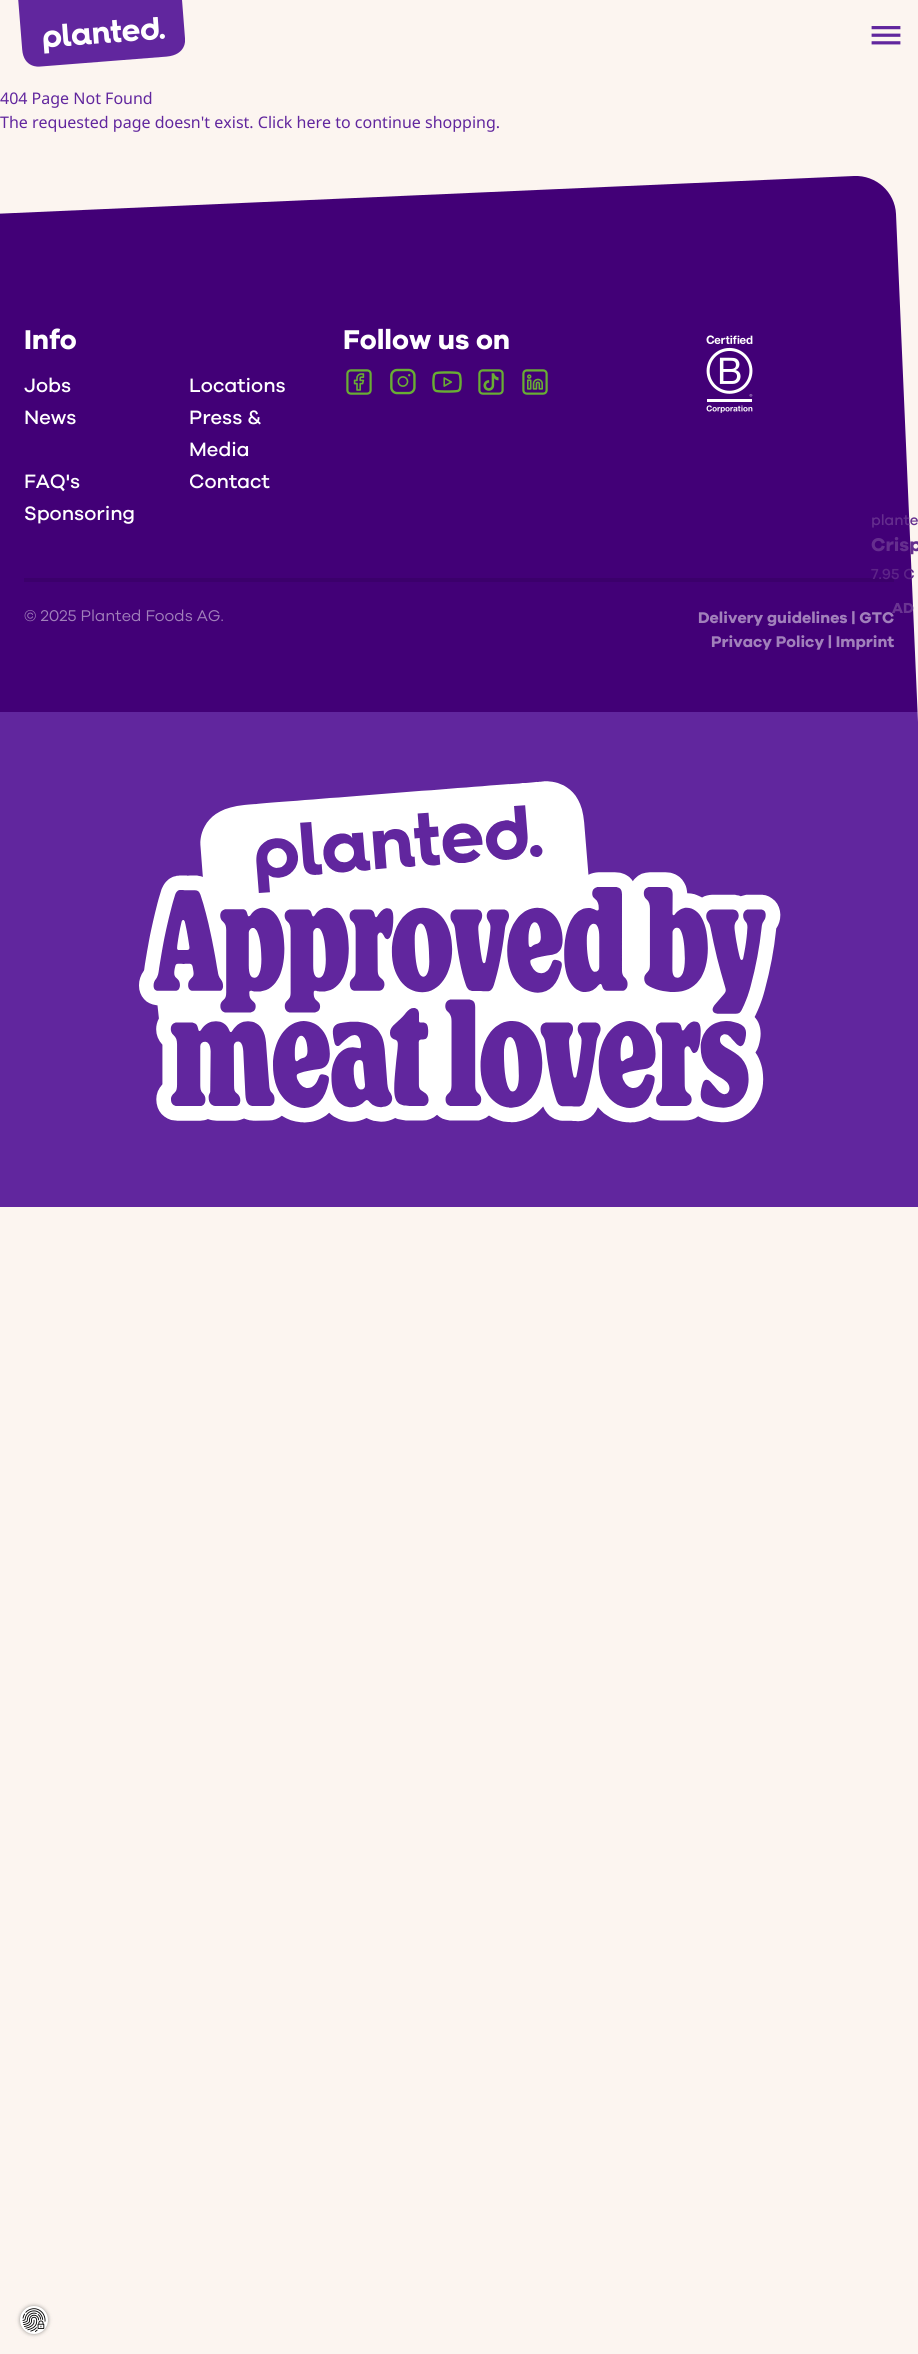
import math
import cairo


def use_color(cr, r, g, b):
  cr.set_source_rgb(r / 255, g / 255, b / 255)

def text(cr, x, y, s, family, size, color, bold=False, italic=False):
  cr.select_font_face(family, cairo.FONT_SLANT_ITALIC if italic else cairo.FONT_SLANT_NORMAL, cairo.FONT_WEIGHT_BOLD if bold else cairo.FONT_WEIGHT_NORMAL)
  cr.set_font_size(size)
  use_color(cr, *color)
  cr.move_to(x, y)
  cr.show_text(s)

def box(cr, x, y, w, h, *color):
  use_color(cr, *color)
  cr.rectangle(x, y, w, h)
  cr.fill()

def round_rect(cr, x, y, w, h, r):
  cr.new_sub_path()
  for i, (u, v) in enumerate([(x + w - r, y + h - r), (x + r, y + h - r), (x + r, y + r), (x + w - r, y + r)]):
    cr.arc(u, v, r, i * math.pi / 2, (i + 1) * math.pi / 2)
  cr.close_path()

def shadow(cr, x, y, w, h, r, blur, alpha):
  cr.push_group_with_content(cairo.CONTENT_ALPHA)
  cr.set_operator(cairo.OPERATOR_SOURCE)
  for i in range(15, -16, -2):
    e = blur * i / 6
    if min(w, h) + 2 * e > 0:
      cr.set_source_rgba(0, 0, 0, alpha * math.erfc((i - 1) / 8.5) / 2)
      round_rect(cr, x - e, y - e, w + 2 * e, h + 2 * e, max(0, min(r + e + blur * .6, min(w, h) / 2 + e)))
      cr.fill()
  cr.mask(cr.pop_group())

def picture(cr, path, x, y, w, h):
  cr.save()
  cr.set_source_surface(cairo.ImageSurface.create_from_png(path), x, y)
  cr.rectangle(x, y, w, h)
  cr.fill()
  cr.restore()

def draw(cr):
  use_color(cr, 252, 245, 240)
  cr.paint()
  picture(cr, "img_01.png", 18, 0, 167, 67)
  picture(cr, "img_02.png", 871, 26, 30, 19)
  cr.save()
  cr.rectangle(0, 134, 918, 1073)
  cr.clip()
  gradient = cairo.LinearGradient(367, 174, 367, 1295)
  gradient.add_color_stop_rgba(0.48, 0.259, 0, 0.467, 1)
  gradient.add_color_stop_rgba(0.48, 0.38, 0.149, 0.62, 1)
  cr.set_source(gradient)
  cr.new_path()
  cr.move_to(-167, 221)
  cr.line_to(854, 176)
  cr.curve_to(876, 175, 895, 192, 896, 214)
  cr.line_to(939, 1207)
  cr.curve_to(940, 1229, 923, 1247, 901, 1248)
  cr.line_to(-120, 1293)
  cr.curve_to(-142, 1294, -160, 1277, -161, 1255)
  cr.line_to(-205, 262)
  cr.curve_to(-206, 240, -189, 222, -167, 221)
  cr.close_path()
  cr.fill()
  cr.restore()
  picture(cr, "img_03.png", 346, 369, 26, 26)
  picture(cr, "img_04.png", 390, 368, 26, 27)
  picture(cr, "img_05.png", 432, 371, 30, 22)
  picture(cr, "img_06.png", 478, 369, 26, 26)
  picture(cr, "img_07.png", 522, 369, 26, 26)
  picture(cr, "img_08.png", 706, 335, 47, 78)
  box(cr, 24, 578, 870, 4, 59, 0, 107)
  picture(cr, "img_09.png", 139, 781, 642, 342)
  use_color(cr, 0, 0, 0)
  shadow(cr, 20, 2306, 28, 28, 14, 2, 0.4)
  use_color(cr, 255, 255, 255)
  cr.arc(34, 2320, 14, 0, 2 * math.pi)
  cr.fill()
  picture(cr, "img_10.png", 22, 2308, 24, 24)
  text(cr, 0, 104, "404 Page Not Found", "Noto Sans", 16, (97, 38, 158))
  text(cr, 0, 128, "The requested page doesn't exist. Click here to continue shopping.", "Noto Sans", 16, (97, 38, 158))
  text(cr, 24, 349, "Info", "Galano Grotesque", 28, (255, 255, 255), bold=True)
  text(cr, 24, 392, "Jobs", "Galano Grotesque Medium", 20, (255, 255, 255))
  text(cr, 189, 392, "Locations", "Galano Grotesque Medium", 20, (255, 255, 255))
  text(cr, 24, 424, "News", "Galano Grotesque Medium", 20, (255, 255, 255))
  text(cr, 189, 424, "Press &", "Galano Grotesque Medium", 20, (255, 255, 255))
  text(cr, 189, 456, "Media", "Galano Grotesque Medium", 20, (255, 255, 255))
  text(cr, 24, 488, "FAQ's", "Galano Grotesque Medium", 20, (255, 255, 255))
  text(cr, 189, 488, "Contact", "Galano Grotesque Medium", 20, (255, 255, 255))
  text(cr, 24, 520, "Sponsoring", "Galano Grotesque Medium", 20, (255, 255, 255))
  text(cr, 343, 349, "Follow us on", "Galano Grotesque", 28, (255, 255, 255), bold=True)
  text(cr, 24, 621, "© 2025 Planted Foods AG.", "Galano Grotesque", 16, (161, 128, 187))
  text(cr, 698, 623, "Delivery guidelines | GTC", "Galano Grotesque", 16, (161, 128, 187), bold=True)
  text(cr, 711, 647, "Privacy Policy | Imprint", "Galano Grotesque", 16, (161, 128, 187), bold=True)
  text(cr, 871, 525, "plante", "Galano Grotesque Medium", 15, (101, 46, 142))
  text(cr, 871, 551, "Crisp", "Galano Grotesque", 19, (101, 46, 142), bold=True)
  text(cr, 871, 579, "7.95 C", "Galano Grotesque Medium", 15, (93, 36, 136))
  text(cr, 892, 613, "AD", "Galano Grotesque", 15, (106, 52, 145), bold=True)


surface = cairo.ImageSurface(cairo.FORMAT_RGB24, 918, 2354)
cr = cairo.Context(surface)
options = cairo.FontOptions()
options.set_hint_metrics(cairo.HINT_METRICS_OFF)
options.set_hint_style(cairo.HINT_STYLE_NONE)
cr.set_font_options(options)
cr.set_miter_limit(4)
draw(cr)
surface.write_to_png("out.png")
